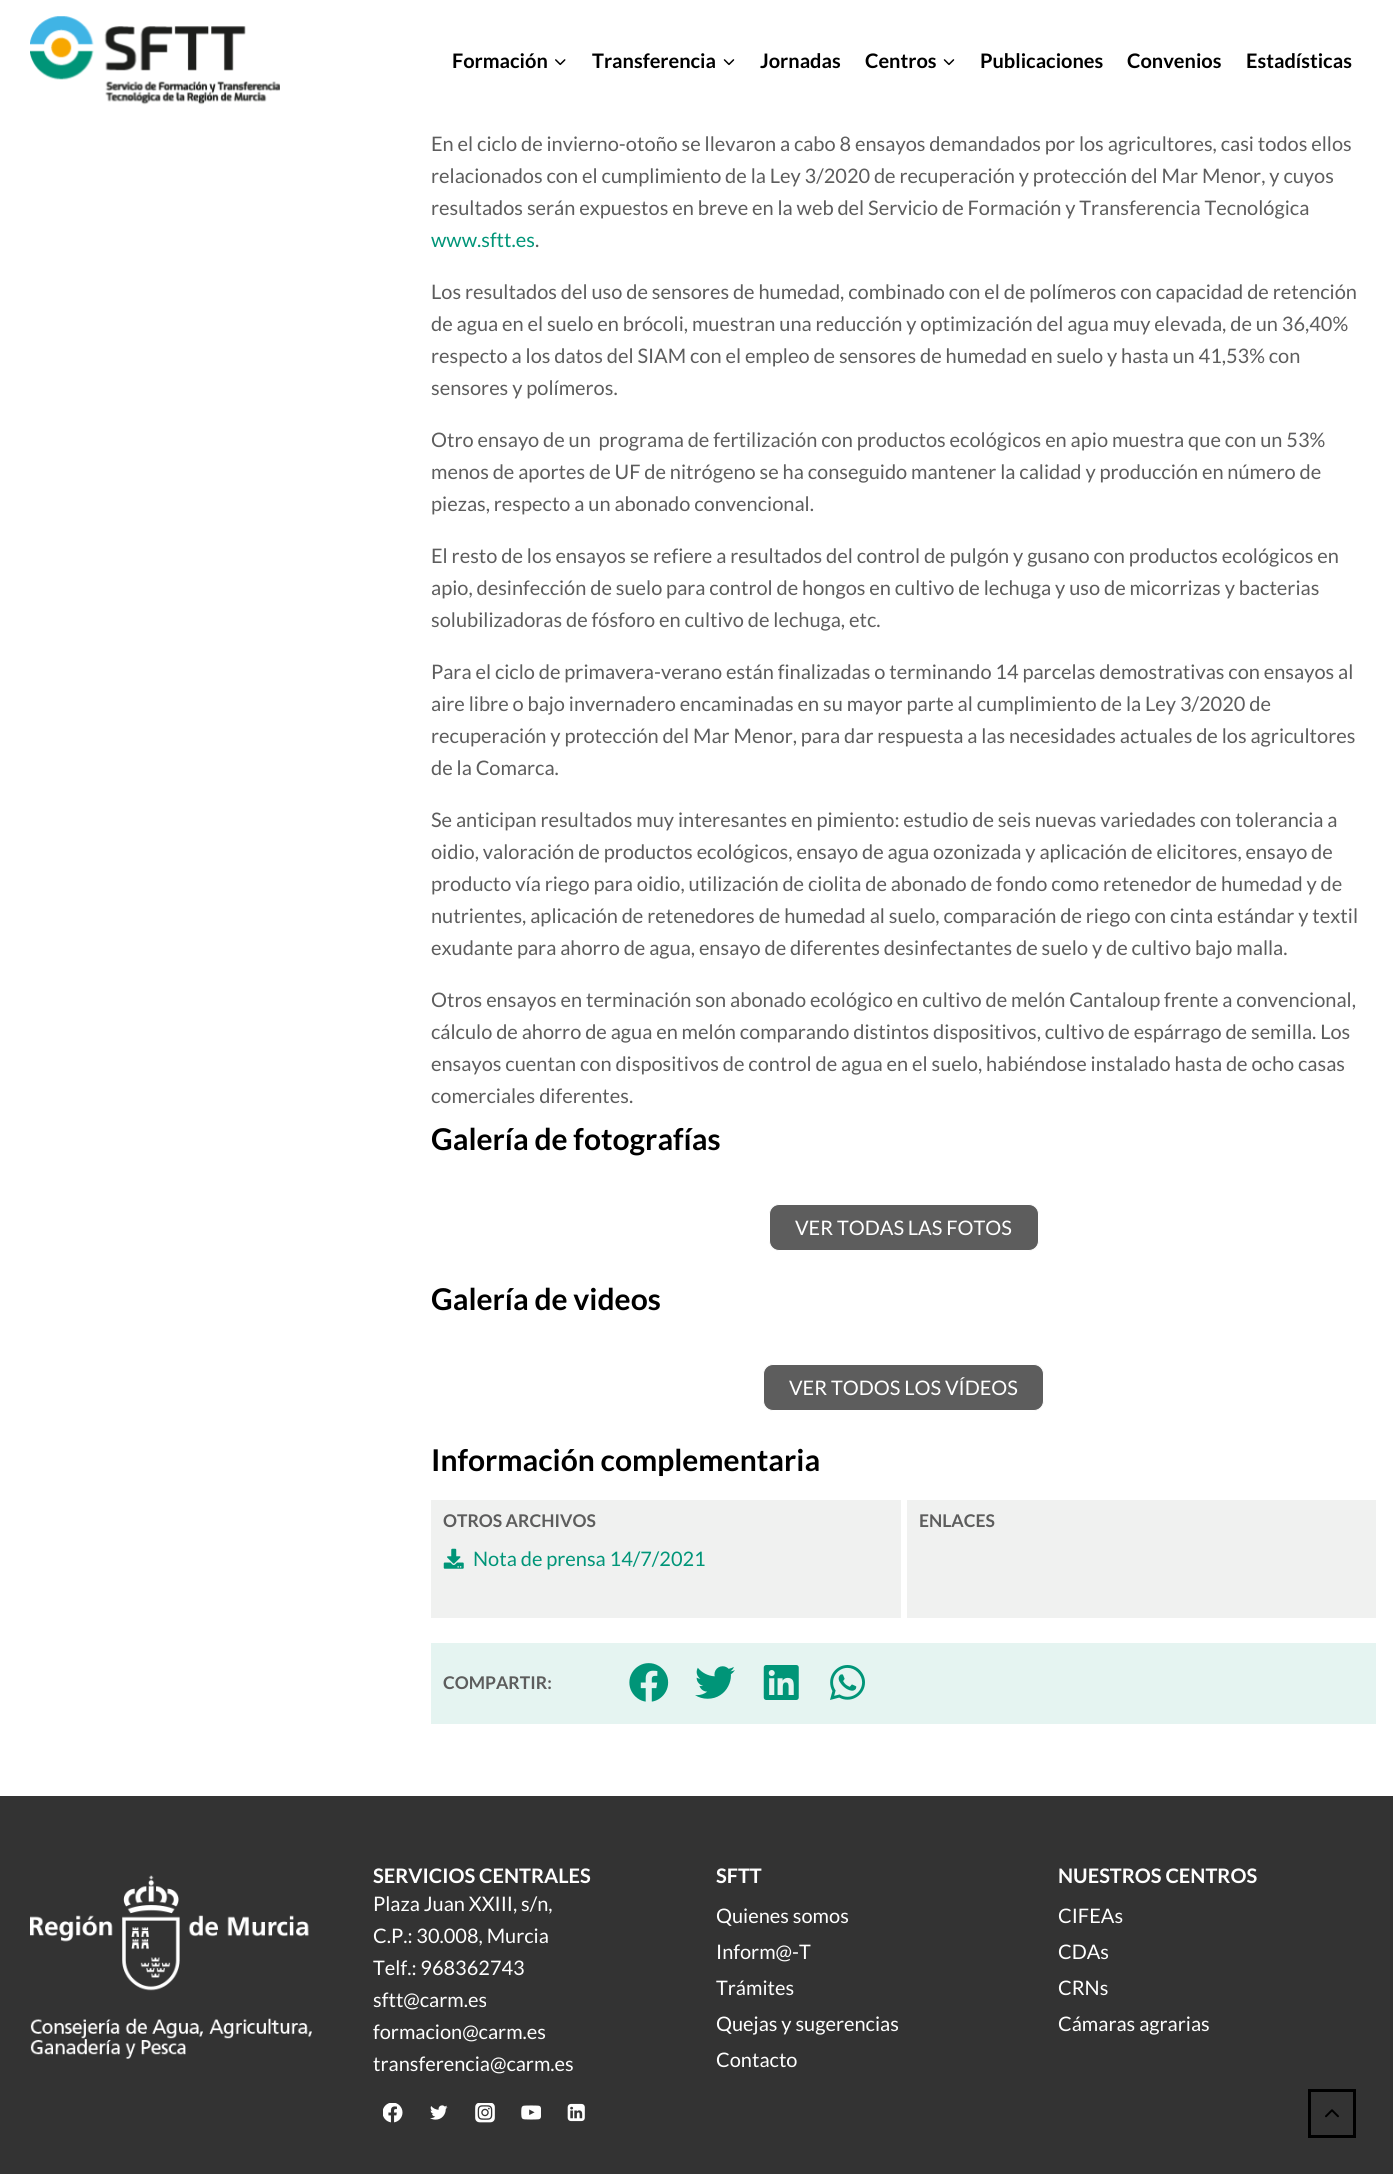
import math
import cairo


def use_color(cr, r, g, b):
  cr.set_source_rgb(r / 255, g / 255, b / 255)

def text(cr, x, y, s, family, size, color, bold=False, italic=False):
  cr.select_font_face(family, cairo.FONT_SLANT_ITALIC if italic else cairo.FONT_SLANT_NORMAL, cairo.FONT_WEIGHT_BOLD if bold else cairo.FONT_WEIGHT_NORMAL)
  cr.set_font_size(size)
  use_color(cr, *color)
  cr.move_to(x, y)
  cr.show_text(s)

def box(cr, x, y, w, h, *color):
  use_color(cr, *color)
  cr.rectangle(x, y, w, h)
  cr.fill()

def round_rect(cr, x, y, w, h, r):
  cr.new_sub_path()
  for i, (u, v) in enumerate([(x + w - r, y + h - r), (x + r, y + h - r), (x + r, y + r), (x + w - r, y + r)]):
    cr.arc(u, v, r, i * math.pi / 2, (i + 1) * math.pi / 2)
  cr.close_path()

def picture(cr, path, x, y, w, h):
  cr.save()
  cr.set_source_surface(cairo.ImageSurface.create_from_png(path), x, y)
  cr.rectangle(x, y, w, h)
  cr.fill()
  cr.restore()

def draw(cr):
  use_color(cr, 255, 255, 255)
  cr.paint()
  picture(cr, "img_01.png", 30, 16, 250, 89)
  picture(cr, "img_02.png", 555, 59, 11, 7)
  picture(cr, "img_03.png", 723, 59, 12, 7)
  picture(cr, "img_03.png", 943, 59, 12, 7)
  use_color(cr, 93, 93, 93)
  round_rect(cr, 769.5, 1204.5, 269, 46, 9.5)
  cr.fill_preserve()
  use_color(cr, 255, 255, 255)
  cr.set_line_width(1)
  cr.stroke()
  use_color(cr, 93, 93, 93)
  round_rect(cr, 763.5, 1364.5, 280, 46, 9.5)
  cr.fill_preserve()
  use_color(cr, 255, 255, 255)
  cr.stroke()
  box(cr, 431, 1500, 470, 118, 240, 241, 240)
  picture(cr, "img_04.png", 443, 1548, 21, 21)
  box(cr, 907, 1500, 469, 118, 240, 241, 240)
  box(cr, 431, 1643, 945, 81, 229, 244, 241)
  picture(cr, "img_05.png", 629, 1663, 40, 39)
  picture(cr, "img_06.png", 695, 1666, 40, 33)
  picture(cr, "img_07.png", 763, 1665, 36, 35)
  picture(cr, "img_08.png", 830, 1665, 35, 35)
  box(cr, 0, 1796, 1393, 378, 51, 51, 51)
  picture(cr, "img_09.png", 30, 1875, 282, 184)
  picture(cr, "img_10.png", 383, 2103, 20, 20)
  picture(cr, "img_11.png", 430, 2105, 18, 15)
  picture(cr, "img_12.png", 475, 2103, 20, 20)
  picture(cr, "img_13.png", 521, 2105, 20, 15)
  picture(cr, "img_14.png", 567, 2103, 18, 19)
  cr.rectangle(1309.5, 2090.5, 45, 46)
  use_color(cr, 0, 0, 0)
  cr.set_line_width(3)
  cr.stroke()
  picture(cr, "img_15.png", 1325, 2109, 14, 9)
  text(cr, 452, 68, "Formación", "Lato", 20, (0, 0, 0), bold=True)
  text(cr, 592, 68, "Transferencia", "Lato", 20, (0, 0, 0), bold=True)
  text(cr, 760, 68, "Jornadas", "Lato", 20, (0, 0, 0), bold=True)
  text(cr, 865, 68, "Centros", "Lato", 20, (0, 0, 0), bold=True)
  text(cr, 980, 68, "Publicaciones", "Lato", 20, (0, 0, 0), bold=True)
  text(cr, 1127, 68, "Convenios", "Lato", 20, (0, 0, 0), bold=True)
  text(cr, 1246, 68, "Estadísticas", "Lato", 20, (0, 0, 0), bold=True)
  text(cr, 431, 151, "En el ciclo de invierno-otoño se llevaron a cabo 8 ensayos demandados por los agricultores, casi todos ellos", "Lato", 20, (93, 93, 93))
  text(cr, 431, 183, "relacionados con el cumplimiento de la Ley 3/2020 de recuperación y protección del Mar Menor, y cuyos", "Lato", 20, (93, 93, 93))
  text(cr, 431, 215, "resultados serán expuestos en breve en la web del Servicio de Formación y Transferencia Tecnológica", "Lato", 20, (93, 93, 93))
  text(cr, 431, 247, "www.sftt.es", "Lato", 20, (0, 149, 120))
  text(cr, 535, 247, ".", "Lato", 20, (93, 93, 93))
  text(cr, 431, 299, "Los resultados del uso de sensores de humedad, combinado con el de polímeros con capacidad de retención", "Lato", 20, (93, 93, 93))
  text(cr, 431, 331, "de agua en el suelo en brócoli, muestran una reducción y optimización del agua muy elevada, de un 36,40%", "Lato", 20, (93, 93, 93))
  text(cr, 431, 363, "respecto a los datos del SIAM con el empleo de sensores de humedad en suelo y hasta un 41,53% con", "Lato", 20, (93, 93, 93))
  text(cr, 431, 395, "sensores y polímeros.", "Lato", 20, (93, 93, 93))
  text(cr, 431, 447, "Otro ensayo de un  programa de fertilización con productos ecológicos en apio muestra que con un 53%", "Lato", 20, (93, 93, 93))
  text(cr, 431, 479, "menos de aportes de UF de nitrógeno se ha conseguido mantener la calidad y producción en número de", "Lato", 20, (93, 93, 93))
  text(cr, 431, 511, "piezas, respecto a un abonado convencional.", "Lato", 20, (93, 93, 93))
  text(cr, 431, 563, "El resto de los ensayos se refiere a resultados del control de pulgón y gusano con productos ecológicos en", "Lato", 20, (93, 93, 93))
  text(cr, 431, 595, "apio, desinfección de suelo para control de hongos en cultivo de lechuga y uso de micorrizas y bacterias", "Lato", 20, (93, 93, 93))
  text(cr, 431, 627, "solubilizadoras de fósforo en cultivo de lechuga, etc.", "Lato", 20, (93, 93, 93))
  text(cr, 431, 679, "Para el ciclo de primavera-verano están finalizadas o terminando 14 parcelas demostrativas con ensayos al", "Lato", 20, (93, 93, 93))
  text(cr, 431, 711, "aire libre o bajo invernadero encaminadas en su mayor parte al cumplimiento de la Ley 3/2020 de", "Lato", 20, (93, 93, 93))
  text(cr, 431, 743, "recuperación y protección del Mar Menor, para dar respuesta a las necesidades actuales de los agricultores", "Lato", 20, (93, 93, 93))
  text(cr, 431, 775, "de la Comarca.", "Lato", 20, (93, 93, 93))
  text(cr, 431, 827, "Se anticipan resultados muy interesantes en pimiento: estudio de seis nuevas variedades con tolerancia a", "Lato", 20, (93, 93, 93))
  text(cr, 431, 859, "oidio, valoración de productos ecológicos, ensayo de agua ozonizada y aplicación de elicitores, ensayo de", "Lato", 20, (93, 93, 93))
  text(cr, 431, 891, "producto vía riego para oidio, utilización de ciolita de abonado de fondo como retenedor de humedad y de", "Lato", 20, (93, 93, 93))
  text(cr, 431, 923, "nutrientes, aplicación de retenedores de humedad al suelo, comparación de riego con cinta estándar y textil", "Lato", 20, (93, 93, 93))
  text(cr, 431, 955, "exudante para ahorro de agua, ensayo de diferentes desinfectantes de suelo y de cultivo bajo malla.", "Lato", 20, (93, 93, 93))
  text(cr, 431, 1007, "Otros ensayos en terminación son abonado ecológico en cultivo de melón Cantaloup frente a convencional,", "Lato", 20, (93, 93, 93))
  text(cr, 431, 1039, "cálculo de ahorro de agua en melón comparando distintos dispositivos, cultivo de espárrago de semilla. Los", "Lato", 20, (93, 93, 93))
  text(cr, 431, 1071, "ensayos cuentan con dispositivos de control de agua en el suelo, habiéndose instalado hasta de ocho casas", "Lato", 20, (93, 93, 93))
  text(cr, 431, 1103, "comerciales diferentes.", "Lato", 20, (93, 93, 93))
  text(cr, 431, 1150, "Galería de fotografías", "Lato", 30, (0, 0, 0), bold=True)
  text(cr, 795, 1235, "VER TODAS LAS FOTOS", "Lato", 20, (255, 255, 255))
  text(cr, 431, 1310, "Galería de videos", "Lato", 30, (0, 0, 0), bold=True)
  text(cr, 789, 1395, "VER TODOS LOS VÍDEOS", "Lato", 20, (255, 255, 255))
  text(cr, 431, 1471, "Información complementaria", "Lato", 30, (0, 0, 0), bold=True)
  text(cr, 443, 1527, "OTROS ARCHIVOS", "Lato", 17.5, (93, 93, 93), bold=True)
  text(cr, 473, 1566, "Nota de prensa 14/7/2021", "Lato", 20, (0, 149, 120))
  text(cr, 919, 1527, "ENLACES", "Lato", 17.5, (93, 93, 93), bold=True)
  text(cr, 443, 1689, "COMPARTIR:", "Lato", 17.5, (93, 93, 93), bold=True)
  text(cr, 373, 1883, "SERVICIOS CENTRALES", "Lato", 20, (255, 255, 255), bold=True)
  text(cr, 373, 1911, "Plaza Juan XXIII, s/n,", "Lato", 20, (255, 255, 255))
  text(cr, 373, 1943, "C.P.: 30.008, Murcia", "Lato", 20, (255, 255, 255))
  text(cr, 373, 1975, "Telf.: 968362743", "Lato", 20, (255, 255, 255))
  text(cr, 373, 2007, "sftt@carm.es", "Lato", 20, (255, 255, 255))
  text(cr, 373, 2039, "formacion@carm.es", "Lato", 20, (255, 255, 255))
  text(cr, 373, 2071, "transferencia@carm.es", "Lato", 20, (255, 255, 255))
  text(cr, 716, 1883, "SFTT", "Lato", 20, (255, 255, 255), bold=True)
  text(cr, 716, 1923, "Quienes somos", "Lato", 20, (255, 255, 255))
  text(cr, 716, 1959, "Inform@-T", "Lato", 20, (255, 255, 255))
  text(cr, 716, 1995, "Trámites", "Lato", 20, (255, 255, 255))
  text(cr, 716, 2031, "Quejas y sugerencias", "Lato", 20, (255, 255, 255))
  text(cr, 716, 2067, "Contacto", "Lato", 20, (255, 255, 255))
  text(cr, 1058, 1883, "NUESTROS CENTROS", "Lato", 20, (255, 255, 255), bold=True)
  text(cr, 1058, 1923, "CIFEAs", "Lato", 20, (255, 255, 255))
  text(cr, 1058, 1959, "CDAs", "Lato", 20, (255, 255, 255))
  text(cr, 1058, 1995, "CRNs", "Lato", 20, (255, 255, 255))
  text(cr, 1058, 2031, "Cámaras agrarias", "Lato", 20, (255, 255, 255))


surface = cairo.ImageSurface(cairo.FORMAT_RGB24, 1393, 2174)
cr = cairo.Context(surface)
options = cairo.FontOptions()
options.set_hint_metrics(cairo.HINT_METRICS_OFF)
options.set_hint_style(cairo.HINT_STYLE_NONE)
cr.set_font_options(options)
cr.set_miter_limit(4)
draw(cr)
surface.write_to_png("out.png")
